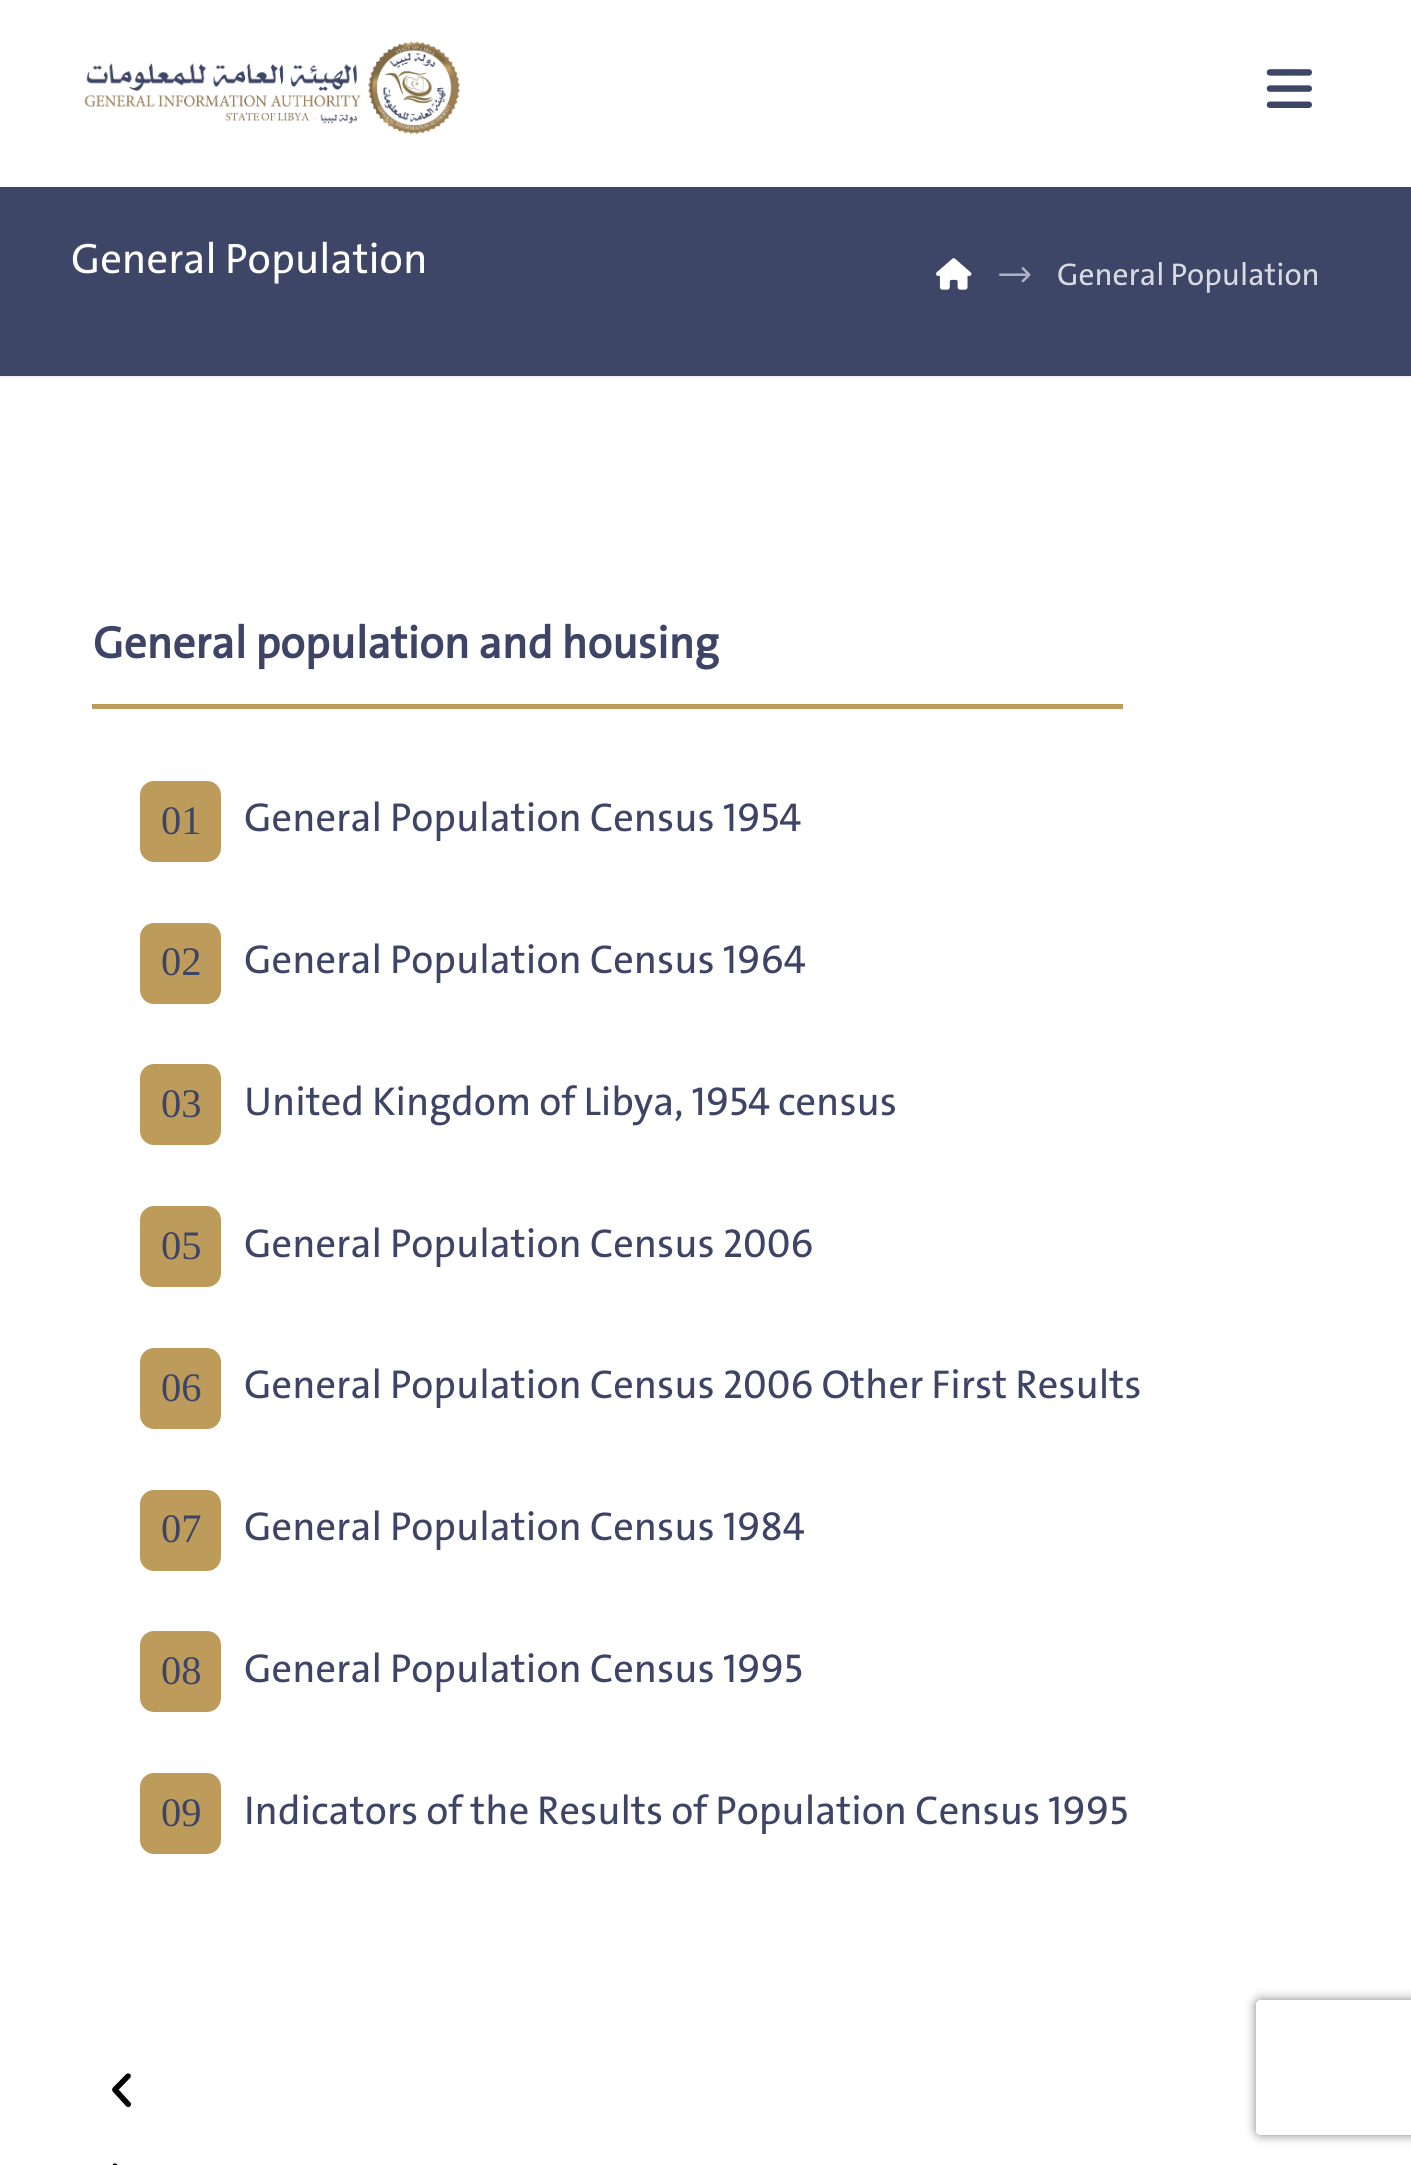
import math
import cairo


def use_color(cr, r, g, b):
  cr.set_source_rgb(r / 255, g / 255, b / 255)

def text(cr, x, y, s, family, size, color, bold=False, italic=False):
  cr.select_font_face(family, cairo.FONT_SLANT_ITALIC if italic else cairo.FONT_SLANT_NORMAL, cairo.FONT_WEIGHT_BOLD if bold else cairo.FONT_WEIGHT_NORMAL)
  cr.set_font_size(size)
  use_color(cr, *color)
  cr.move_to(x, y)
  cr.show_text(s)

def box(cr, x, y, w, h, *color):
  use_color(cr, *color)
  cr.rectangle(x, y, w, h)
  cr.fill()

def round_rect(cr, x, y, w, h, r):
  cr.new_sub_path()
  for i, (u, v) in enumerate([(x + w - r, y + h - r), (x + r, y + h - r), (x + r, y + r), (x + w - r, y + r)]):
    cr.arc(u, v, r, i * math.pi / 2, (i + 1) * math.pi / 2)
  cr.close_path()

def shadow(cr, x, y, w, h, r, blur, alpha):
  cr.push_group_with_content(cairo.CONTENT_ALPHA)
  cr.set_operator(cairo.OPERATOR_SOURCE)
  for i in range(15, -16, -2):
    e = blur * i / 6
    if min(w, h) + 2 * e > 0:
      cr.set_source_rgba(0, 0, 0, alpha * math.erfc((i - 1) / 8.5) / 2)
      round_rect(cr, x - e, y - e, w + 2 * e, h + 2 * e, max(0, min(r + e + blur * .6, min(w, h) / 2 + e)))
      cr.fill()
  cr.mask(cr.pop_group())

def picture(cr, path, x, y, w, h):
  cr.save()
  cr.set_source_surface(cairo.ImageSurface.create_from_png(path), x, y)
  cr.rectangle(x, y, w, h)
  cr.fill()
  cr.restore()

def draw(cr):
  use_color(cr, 255, 255, 255)
  cr.paint()
  picture(cr, "img_01.png", 84, 41, 376, 94)
  picture(cr, "img_02.png", 1266, 69, 46, 39)
  box(cr, 0, 187, 1411, 189, 61, 70, 103)
  box(cr, 0, 376, 1411, 2, 244, 244, 244)
  picture(cr, "img_03.png", 936, 258, 36, 32)
  picture(cr, "img_04.png", 999, 267, 32, 16)
  box(cr, 92, 704, 1031, 5, 189, 155, 91)
  round_rect(cr, 140, 781, 81, 81, 14)
  cr.fill()
  round_rect(cr, 140, 923, 81, 81, 14)
  cr.fill()
  round_rect(cr, 140, 1064, 81, 81, 14)
  cr.fill()
  round_rect(cr, 140, 1206, 81, 81, 14)
  cr.fill()
  round_rect(cr, 140, 1348, 81, 81, 14)
  cr.fill()
  round_rect(cr, 140, 1490, 81, 81, 14)
  cr.fill()
  round_rect(cr, 140, 1631, 81, 81, 14)
  cr.fill()
  round_rect(cr, 140, 1773, 81, 81, 14)
  cr.fill()
  picture(cr, "img_05.png", 112, 2073, 20, 35)
  picture(cr, "img_06.png", 112, 2163, 6, 2)
  cr.save()
  cr.set_fill_rule(cairo.FILL_RULE_EVEN_ODD)
  cr.new_path()
  cr.move_to(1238, 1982)
  cr.line_to(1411, 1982)
  cr.line_to(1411, 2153)
  cr.line_to(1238, 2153)
  cr.close_path()
  cr.move_to(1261, 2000)
  cr.line_to(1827, 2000)
  cr.curve_to(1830, 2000, 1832, 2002, 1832, 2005)
  cr.line_to(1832, 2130)
  cr.curve_to(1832, 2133, 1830, 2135, 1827, 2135)
  cr.line_to(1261, 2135)
  cr.curve_to(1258, 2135, 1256, 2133, 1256, 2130)
  cr.line_to(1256, 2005)
  cr.curve_to(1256, 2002, 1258, 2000, 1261, 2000)
  cr.close_path()
  cr.clip()
  use_color(cr, 128, 128, 128)
  shadow(cr, 1256, 2000, 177, 135, 5, 5.5, 1)
  cr.restore()
  text(cr, 71, 273, "General Population", "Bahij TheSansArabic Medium", 42.75, (255, 255, 255))
  text(cr, 1057, 285, "General Population", "Bahij TheSansArabic Medium", 31.5, (216, 218, 225))
  text(cr, 93, 658, "General population and housing", "Bahij TheSansArabic", 45, (61, 68, 101), bold=True)
  text(cr, 161, 834, "01", "Liberation Serif", 40.5, (61, 68, 101))
  text(cr, 244, 831, "General Population Census 1954", "Bahij TheSansArabic Medium", 40.5, (61, 68, 101))
  text(cr, 161, 975, "02", "Liberation Serif", 40.5, (61, 68, 101))
  text(cr, 244, 973, "General Population Census 1964", "Bahij TheSansArabic Medium", 40.5, (61, 68, 101))
  text(cr, 161, 1117, "03", "Liberation Serif", 40.5, (61, 68, 101))
  text(cr, 244, 1115, "United Kingdom of Libya, 1954 census", "Bahij TheSansArabic Medium", 40.5, (61, 68, 101))
  text(cr, 161, 1259, "05", "Liberation Serif", 40.5, (61, 68, 101))
  text(cr, 244, 1257, "General Population Census 2006", "Bahij TheSansArabic Medium", 40.5, (61, 68, 101))
  text(cr, 161, 1401, "06", "Liberation Serif", 40.5, (61, 68, 101))
  text(cr, 244, 1398, "General Population Census 2006 Other First Results", "Bahij TheSansArabic Medium", 40.5, (61, 68, 101))
  text(cr, 161, 1542, "07", "Liberation Serif", 40.5, (61, 68, 101))
  text(cr, 244, 1540, "General Population Census 1984", "Bahij TheSansArabic Medium", 40.5, (61, 68, 101))
  text(cr, 161, 1684, "08", "Liberation Serif", 40.5, (61, 68, 101))
  text(cr, 244, 1682, "General Population Census 1995", "Bahij TheSansArabic Medium", 40.5, (61, 68, 101))
  text(cr, 161, 1826, "09", "Liberation Serif", 40.5, (61, 68, 101))
  text(cr, 244, 1824, "Indicators of the Results of Population Census 1995", "Bahij TheSansArabic Medium", 40.5, (61, 68, 101))


surface = cairo.ImageSurface(cairo.FORMAT_RGB24, 1411, 2165)
cr = cairo.Context(surface)
options = cairo.FontOptions()
options.set_hint_metrics(cairo.HINT_METRICS_OFF)
options.set_hint_style(cairo.HINT_STYLE_NONE)
cr.set_font_options(options)
cr.set_miter_limit(4)
draw(cr)
surface.write_to_png("out.png")
